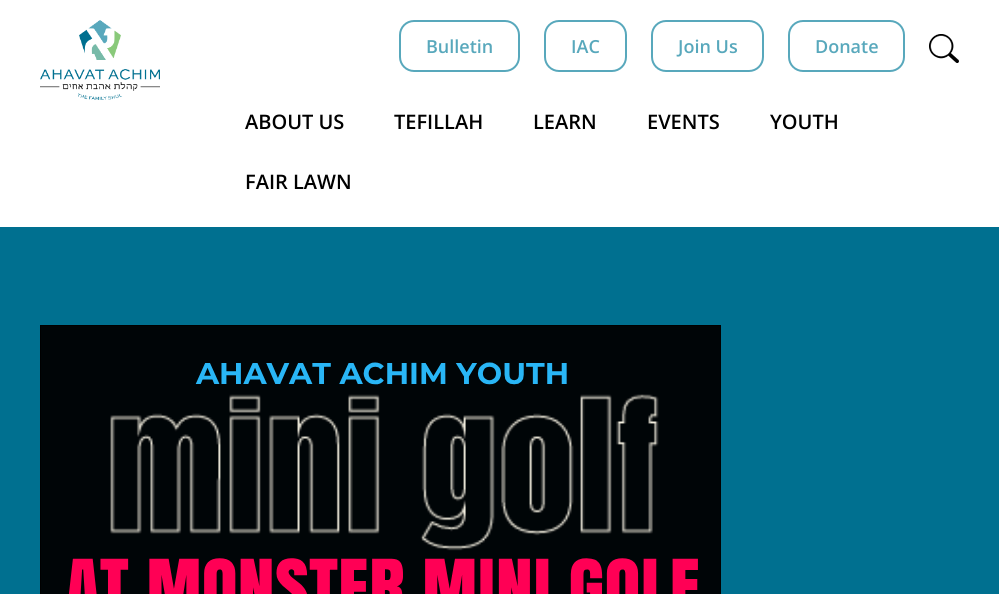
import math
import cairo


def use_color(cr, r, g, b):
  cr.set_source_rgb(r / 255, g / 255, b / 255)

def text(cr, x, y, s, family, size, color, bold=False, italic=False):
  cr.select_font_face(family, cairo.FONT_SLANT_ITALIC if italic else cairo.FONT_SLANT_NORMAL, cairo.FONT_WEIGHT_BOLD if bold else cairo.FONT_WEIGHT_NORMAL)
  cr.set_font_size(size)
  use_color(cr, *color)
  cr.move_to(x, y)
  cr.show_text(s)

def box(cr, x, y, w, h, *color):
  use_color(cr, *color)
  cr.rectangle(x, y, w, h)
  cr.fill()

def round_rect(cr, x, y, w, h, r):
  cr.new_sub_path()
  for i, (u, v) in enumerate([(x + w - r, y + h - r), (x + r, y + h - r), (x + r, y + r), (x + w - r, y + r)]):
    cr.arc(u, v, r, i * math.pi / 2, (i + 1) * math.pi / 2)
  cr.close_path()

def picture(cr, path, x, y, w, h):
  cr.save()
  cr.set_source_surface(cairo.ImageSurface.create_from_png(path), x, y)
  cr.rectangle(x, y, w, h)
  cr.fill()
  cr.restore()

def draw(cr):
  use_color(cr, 0, 112, 144)
  cr.paint()
  box(cr, 0, 0, 999, 227, 255, 255, 255)
  picture(cr, "img_01.png", 40, 20, 120, 80)
  round_rect(cr, 400, 21, 119, 50, 14)
  use_color(cr, 88, 168, 188)
  cr.stroke()
  round_rect(cr, 545, 21, 81, 50, 14)
  cr.stroke()
  round_rect(cr, 652, 21, 111, 50, 14)
  cr.stroke()
  round_rect(cr, 789, 21, 115, 50, 14)
  cr.stroke()
  picture(cr, "img_02.png", 929, 34, 30, 29)
  cr.rectangle(40.5, 325.5, 680, 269)
  use_color(cr, 0, 0, 0)
  cr.set_line_width(1)
  cr.stroke()
  picture(cr, "img_03.png", 41, 326, 679, 268)
  text(cr, 426, 53, "Bulletin", "Open Sans SemiBold", 18, (88, 168, 188))
  text(cr, 571, 53, "IAC", "Open Sans SemiBold", 18, (88, 168, 188))
  text(cr, 678, 53, "Join Us", "Open Sans SemiBold", 18, (88, 168, 188))
  text(cr, 815, 53, "Donate", "Open Sans SemiBold", 18, (88, 168, 188))
  text(cr, 245, 129, "ABOUT US", "Open Sans SemiBold", 20, (0, 0, 0))
  text(cr, 394, 129, "TEFILLAH", "Open Sans SemiBold", 20, (0, 0, 0))
  text(cr, 533, 129, "LEARN", "Open Sans SemiBold", 20, (0, 0, 0))
  text(cr, 647, 129, "EVENTS", "Open Sans SemiBold", 20, (0, 0, 0))
  text(cr, 770, 129, "YOUTH", "Open Sans SemiBold", 20, (0, 0, 0))
  text(cr, 245, 189, "FAIR LAWN", "Open Sans SemiBold", 20, (0, 0, 0))


surface = cairo.ImageSurface(cairo.FORMAT_RGB24, 999, 594)
cr = cairo.Context(surface)
options = cairo.FontOptions()
options.set_hint_metrics(cairo.HINT_METRICS_OFF)
options.set_hint_style(cairo.HINT_STYLE_NONE)
cr.set_font_options(options)
cr.set_miter_limit(4)
draw(cr)
surface.write_to_png("out.png")
